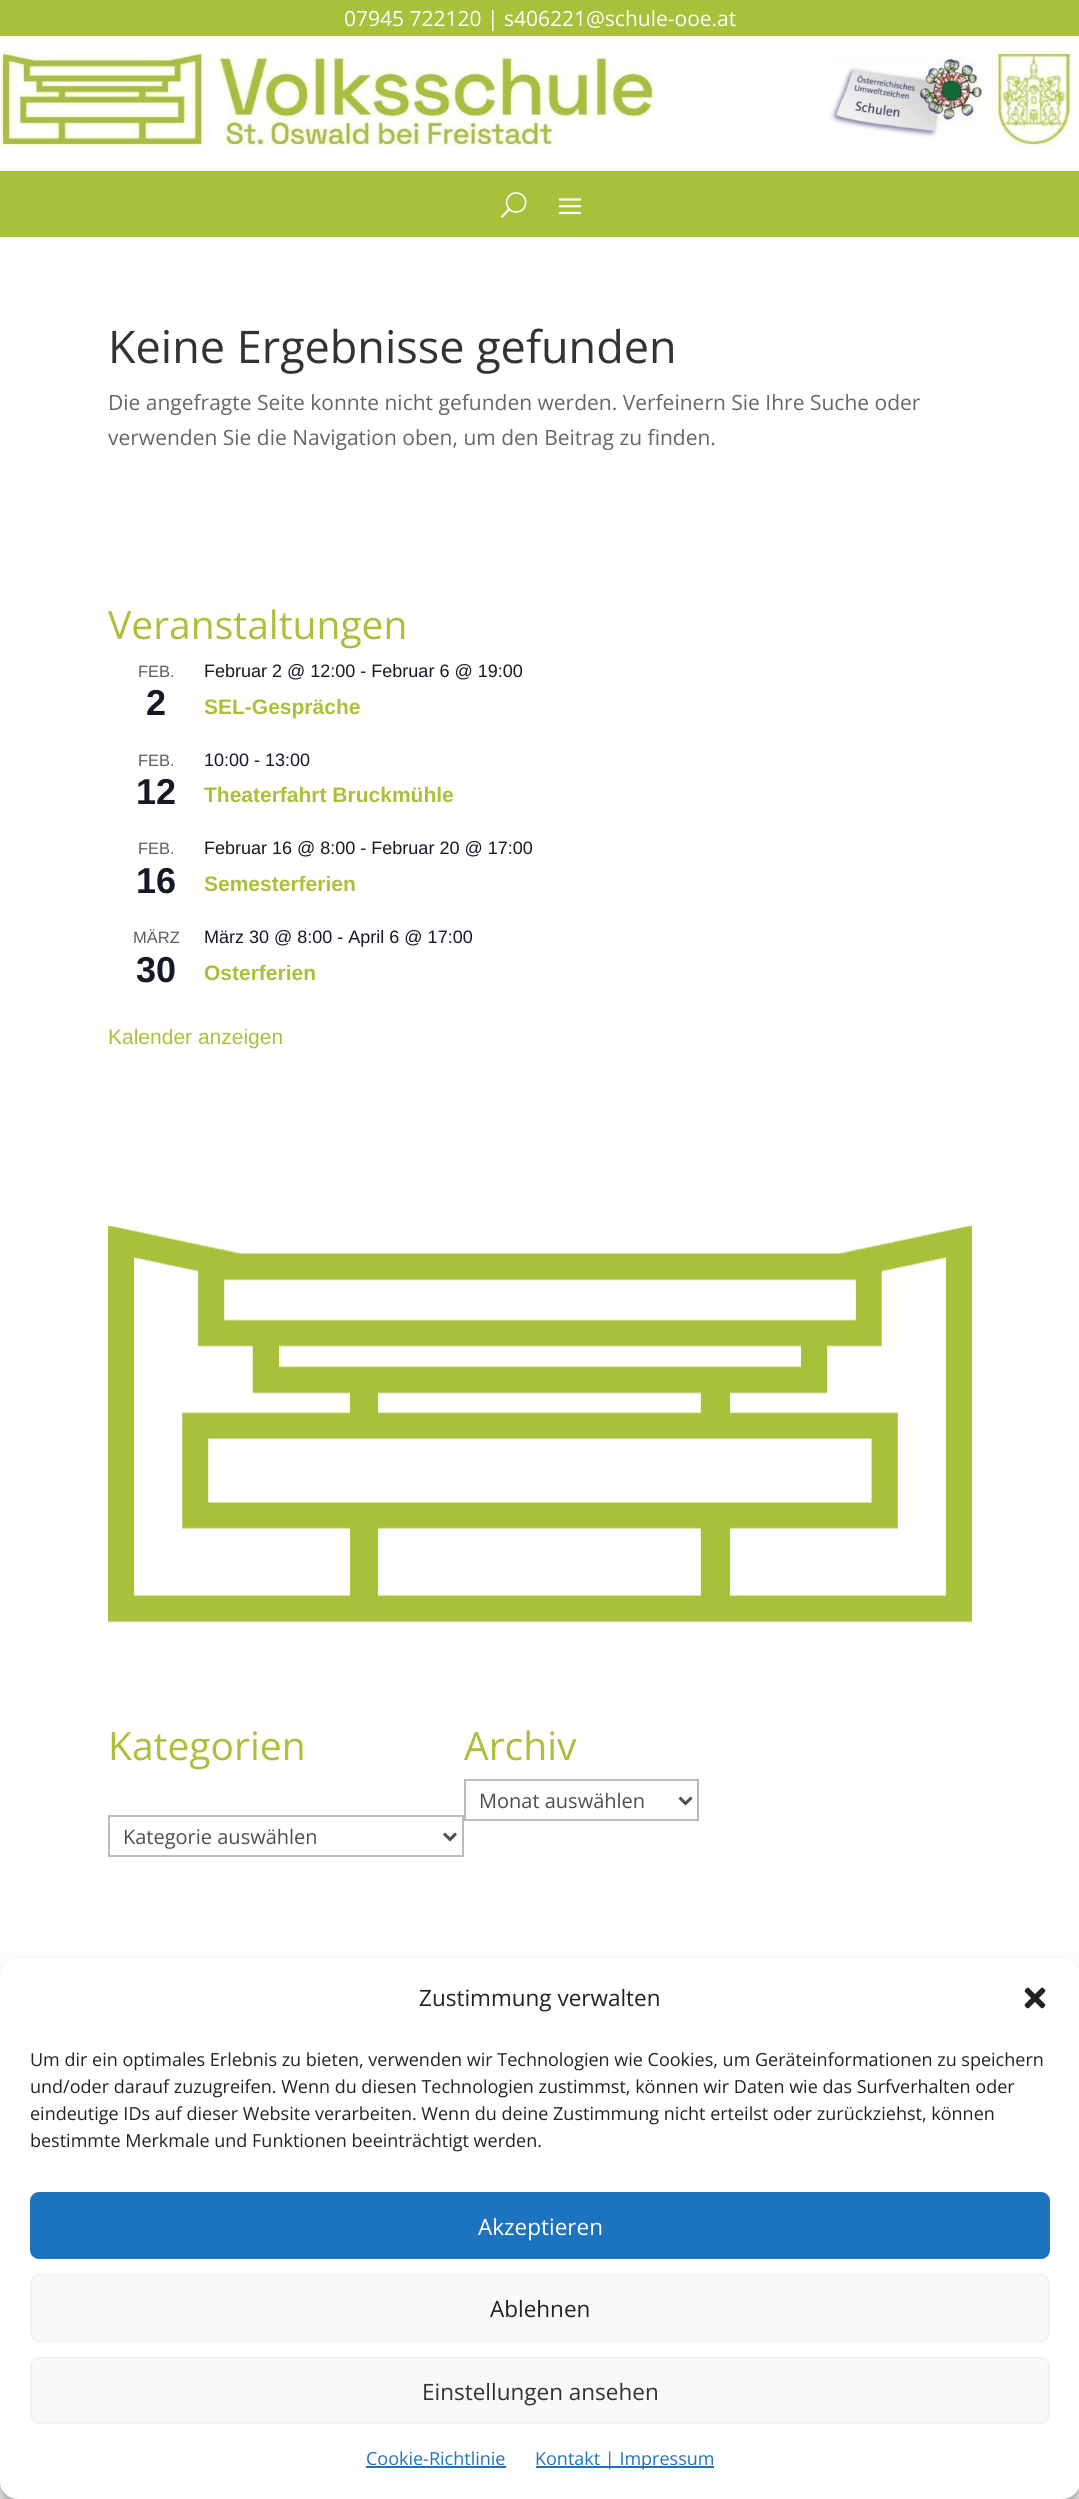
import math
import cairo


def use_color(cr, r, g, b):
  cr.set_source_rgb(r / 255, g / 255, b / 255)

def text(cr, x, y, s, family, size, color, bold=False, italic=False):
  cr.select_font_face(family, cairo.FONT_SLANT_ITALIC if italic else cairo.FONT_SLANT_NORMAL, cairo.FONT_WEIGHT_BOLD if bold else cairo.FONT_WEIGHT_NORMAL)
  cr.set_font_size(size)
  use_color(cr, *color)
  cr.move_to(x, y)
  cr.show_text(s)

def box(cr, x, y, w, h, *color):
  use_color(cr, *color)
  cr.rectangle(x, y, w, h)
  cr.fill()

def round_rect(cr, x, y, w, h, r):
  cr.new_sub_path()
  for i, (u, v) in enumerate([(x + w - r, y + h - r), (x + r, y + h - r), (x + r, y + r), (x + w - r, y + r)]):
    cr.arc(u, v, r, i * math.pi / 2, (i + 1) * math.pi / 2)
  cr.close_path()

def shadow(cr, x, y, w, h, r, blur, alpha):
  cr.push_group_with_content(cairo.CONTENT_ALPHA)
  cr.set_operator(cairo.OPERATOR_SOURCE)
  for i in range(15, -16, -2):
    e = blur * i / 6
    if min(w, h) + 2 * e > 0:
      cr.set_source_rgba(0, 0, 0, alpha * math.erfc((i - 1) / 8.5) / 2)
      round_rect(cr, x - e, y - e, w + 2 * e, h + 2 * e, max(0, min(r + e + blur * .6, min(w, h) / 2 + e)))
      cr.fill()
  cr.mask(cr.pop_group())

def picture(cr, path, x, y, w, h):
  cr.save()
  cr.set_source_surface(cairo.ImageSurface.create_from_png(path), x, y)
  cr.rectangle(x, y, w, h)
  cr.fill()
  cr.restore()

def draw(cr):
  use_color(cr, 255, 255, 255)
  cr.paint()
  box(cr, 0, 0, 1079, 36, 167, 193, 58)
  picture(cr, "img_01.png", 0, 51, 1072, 97)
  box(cr, 0, 171, 1079, 66, 167, 193, 58)
  picture(cr, "img_02.png", 500, 192, 27, 26)
  picture(cr, "img_03.png", 558, 198, 24, 17)
  box(cr, 108, 1621, 864, 2, 239, 239, 239)
  picture(cr, "img_04.png", 108, 1226, 864, 396)
  cr.rectangle(109, 1816, 354, 40)
  use_color(cr, 187, 187, 187)
  cr.stroke()
  cr.new_path()
  cr.move_to(444, 1833.5)
  cr.line_to(450, 1839.5)
  cr.line_to(456, 1833.5)
  use_color(cr, 78, 78, 78)
  cr.set_line_width(3)
  cr.stroke()
  cr.rectangle(465, 1780, 233, 40)
  use_color(cr, 187, 187, 187)
  cr.set_line_width(2)
  cr.stroke()
  cr.new_path()
  cr.move_to(679.5, 1797.5)
  cr.line_to(685.5, 1803.5)
  cr.line_to(691.5, 1797.5)
  use_color(cr, 78, 78, 78)
  cr.set_line_width(3)
  cr.stroke()
  use_color(cr, 0, 0, 0)
  shadow(cr, 0, 1967, 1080, 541, 18, 4.5, 0.23)
  shadow(cr, 0, 1973, 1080, 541, 18, 15, 0.19)
  use_color(cr, 255, 255, 255)
  round_rect(cr, 0, 1958, 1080, 541, 18)
  cr.fill()
  picture(cr, "img_05.png", 1024, 1987, 22, 22)
  use_color(cr, 30, 115, 190)
  round_rect(cr, 31, 2193, 1018, 65, 8)
  cr.fill_preserve()
  cr.set_line_width(2)
  cr.stroke()
  use_color(cr, 249, 249, 249)
  round_rect(cr, 31, 2275, 1018, 66, 8)
  cr.fill_preserve()
  use_color(cr, 242, 242, 242)
  cr.stroke()
  use_color(cr, 249, 249, 249)
  round_rect(cr, 31, 2358, 1018, 65, 8)
  cr.fill_preserve()
  use_color(cr, 242, 242, 242)
  cr.stroke()
  box(cr, 366, 2466, 140, 2, 30, 115, 190)
  box(cr, 536, 2466, 178, 2, 30, 115, 190)
  text(cr, 344, 26, "07945 722120 | s406221@schule-ooe.at", "Open Sans", 21, (255, 255, 255))
  text(cr, 108, 363, "Keine Ergebnisse gefunden", "Open Sans", 45, (51, 51, 51))
  text(cr, 108, 410, "Die angefragte Seite konnte nicht gefunden werden. Verfeinern Sie Ihre Suche oder", "Open Sans", 21, (102, 102, 102))
  text(cr, 108, 445, "verwenden Sie die Navigation oben, um den Beitrag zu finden.", "Open Sans", 21, (102, 102, 102))
  text(cr, 108, 639, "Veranstaltungen", "Open Sans", 39, (167, 194, 58))
  text(cr, 138, 677, "FEB.", "Liberation Sans", 16.5, (93, 93, 93))
  text(cr, 146, 715, "2", "Liberation Sans", 36, (20, 24, 39), bold=True)
  text(cr, 204, 677, "Februar 2 @ 12:00 - Februar 6 @ 19:00", "Liberation Sans", 18, (20, 24, 39))
  text(cr, 204, 714, "SEL-Gespräche", "Liberation Sans", 21, (167, 194, 58), bold=True)
  text(cr, 138, 766, "FEB.", "Liberation Sans", 16.5, (93, 93, 93))
  text(cr, 136, 804, "12", "Liberation Sans", 36, (20, 24, 39), bold=True)
  text(cr, 204, 766, "10:00 - 13:00", "Liberation Sans", 18, (20, 24, 39))
  text(cr, 204, 802, "Theaterfahrt Bruckmühle", "Liberation Sans", 21, (167, 194, 58), bold=True)
  text(cr, 138, 854, "FEB.", "Liberation Sans", 16.5, (93, 93, 93))
  text(cr, 136, 893, "16", "Liberation Sans", 36, (20, 24, 39), bold=True)
  text(cr, 204, 854, "Februar 16 @ 8:00 - Februar 20 @ 17:00", "Liberation Sans", 18, (20, 24, 39))
  text(cr, 204, 891, "Semesterferien", "Liberation Sans", 21, (167, 194, 58), bold=True)
  text(cr, 133, 943, "MÄRZ", "Liberation Sans", 16.5, (93, 93, 93))
  text(cr, 136, 982, "30", "Liberation Sans", 36, (20, 24, 39), bold=True)
  text(cr, 204, 943, "März 30 @ 8:00 - April 6 @ 17:00", "Liberation Sans", 18, (20, 24, 39))
  text(cr, 204, 980, "Osterferien", "Liberation Sans", 21, (167, 194, 58), bold=True)
  text(cr, 108, 1044, "Kalender anzeigen", "Liberation Sans", 21, (167, 194, 58))
  text(cr, 108, 1760, "Kategorien", "Open Sans", 39, (167, 194, 58))
  text(cr, 123, 1844, "Kategorie auswählen", "Open Sans", 20, (78, 78, 78))
  text(cr, 464, 1760, "Archiv", "Open Sans", 39, (167, 194, 58))
  text(cr, 479, 1808, "Monat auswählen", "Open Sans", 20, (78, 78, 78))
  text(cr, 419, 2006, "Zustimmung verwalten", "Open Sans", 22.5, (34, 34, 34))
  text(cr, 30, 2066, "Um dir ein optimales Erlebnis zu bieten, verwenden wir Technologien wie Cookies, um Geräteinformationen zu speichern", "Open Sans", 18, (34, 34, 34))
  text(cr, 30, 2093, "und/oder darauf zuzugreifen. Wenn du diesen Technologien zustimmst, können wir Daten wie das Surfverhalten oder", "Open Sans", 18, (34, 34, 34))
  text(cr, 30, 2120, "eindeutige IDs auf dieser Website verarbeiten. Wenn du deine Zustimmung nicht erteilst oder zurückziehst, können", "Open Sans", 18, (34, 34, 34))
  text(cr, 30, 2147, "bestimmte Merkmale und Funktionen beeinträchtigt werden.", "Open Sans", 18, (34, 34, 34))
  text(cr, 478, 2235, "Akzeptieren", "Open Sans", 22.5, (255, 255, 255))
  text(cr, 490, 2317, "Ablehnen", "Open Sans", 22.5, (34, 34, 34))
  text(cr, 422, 2400, "Einstellungen ansehen", "Open Sans", 22.5, (51, 51, 51))
  text(cr, 366, 2465, "Cookie-Richtlinie", "Open Sans", 18, (30, 115, 190))
  text(cr, 535, 2465, "Kontakt | Impressum", "Open Sans", 18, (30, 115, 190))


surface = cairo.ImageSurface(cairo.FORMAT_RGB24, 1079, 2499)
cr = cairo.Context(surface)
options = cairo.FontOptions()
options.set_hint_metrics(cairo.HINT_METRICS_OFF)
options.set_hint_style(cairo.HINT_STYLE_NONE)
cr.set_font_options(options)
cr.set_miter_limit(4)
draw(cr)
surface.write_to_png("out.png")
